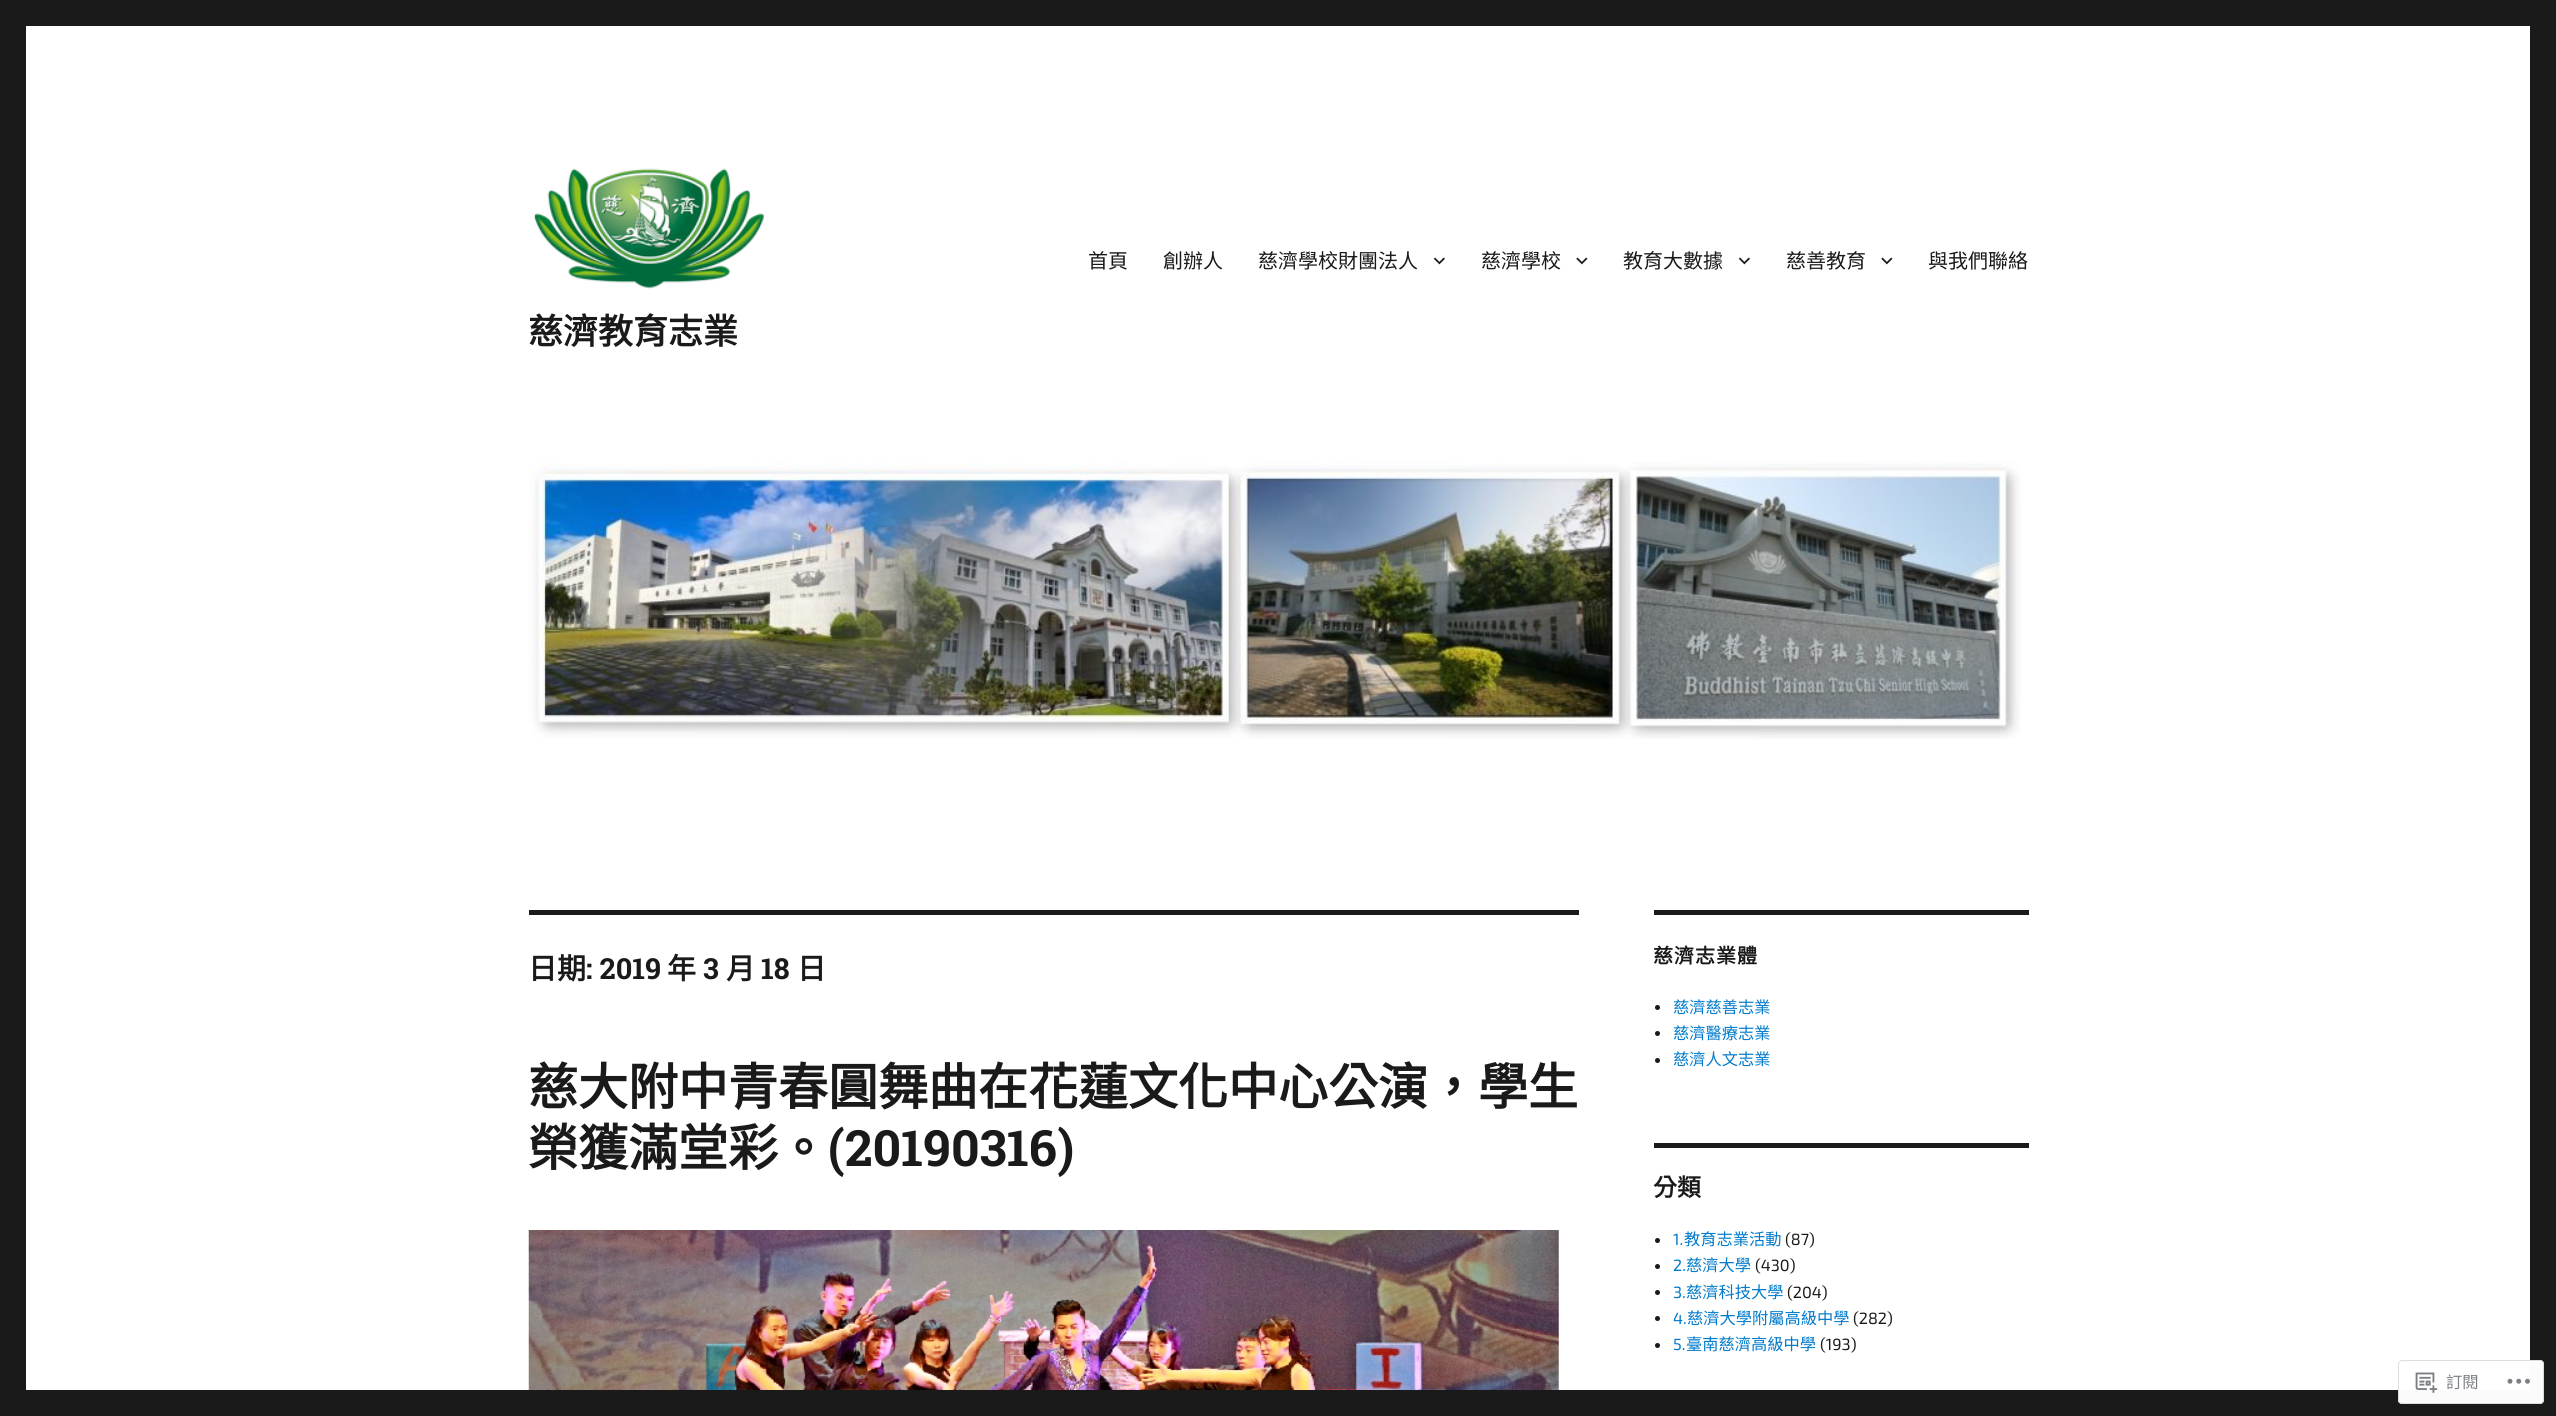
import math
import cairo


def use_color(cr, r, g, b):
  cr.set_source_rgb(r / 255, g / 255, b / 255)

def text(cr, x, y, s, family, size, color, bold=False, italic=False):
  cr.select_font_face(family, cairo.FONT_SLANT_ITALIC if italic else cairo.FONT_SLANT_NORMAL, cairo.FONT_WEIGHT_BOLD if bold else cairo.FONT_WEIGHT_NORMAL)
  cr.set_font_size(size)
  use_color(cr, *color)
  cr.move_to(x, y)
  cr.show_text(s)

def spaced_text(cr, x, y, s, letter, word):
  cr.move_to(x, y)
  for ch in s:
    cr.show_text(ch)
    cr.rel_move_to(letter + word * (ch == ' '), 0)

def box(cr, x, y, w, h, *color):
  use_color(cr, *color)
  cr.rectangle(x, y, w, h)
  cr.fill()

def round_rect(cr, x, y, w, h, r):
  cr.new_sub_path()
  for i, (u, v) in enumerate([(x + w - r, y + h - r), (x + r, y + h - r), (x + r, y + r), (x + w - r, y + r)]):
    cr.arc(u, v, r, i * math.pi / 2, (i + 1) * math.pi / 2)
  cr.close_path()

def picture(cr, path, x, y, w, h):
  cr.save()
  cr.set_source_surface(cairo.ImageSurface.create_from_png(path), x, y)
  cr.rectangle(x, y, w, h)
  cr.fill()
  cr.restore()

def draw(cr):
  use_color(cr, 26, 26, 26)
  cr.paint()
  box(cr, 26, 26, 2504, 1364, 255, 255, 255)
  picture(cr, "img_01.png", 1433, 257, 12, 8)
  picture(cr, "img_02.png", 1576, 257, 12, 8)
  picture(cr, "img_01.png", 1738, 257, 12, 8)
  picture(cr, "img_02.png", 1881, 257, 12, 8)
  picture(cr, "img_03.png", 533, 168, 231, 121)
  picture(cr, "img_04.png", 529, 462, 1492, 277)
  box(cr, 529, 910, 1050, 5, 26, 26, 26)
  picture(cr, "img_05.png", 528, 1230, 1031, 160)
  box(cr, 1654, 910, 375, 5, 26, 26, 26)
  cr.arc(1657.5, 1007.5, 2.5, 0, 2 * math.pi)
  cr.fill()
  cr.arc(1657.5, 1033.5, 2.5, 0, 2 * math.pi)
  cr.fill()
  cr.arc(1657.5, 1060.5, 2.5, 0, 2 * math.pi)
  cr.fill()
  box(cr, 1654, 1143, 375, 5, 26, 26, 26)
  cr.arc(1657.5, 1240.5, 2.5, 0, 2 * math.pi)
  cr.fill()
  cr.arc(1657.5, 1266.5, 2.5, 0, 2 * math.pi)
  cr.fill()
  cr.arc(1657.5, 1292.5, 2.5, 0, 2 * math.pi)
  cr.fill()
  cr.arc(1657.5, 1318.5, 2.5, 0, 2 * math.pi)
  cr.fill()
  cr.arc(1657.5, 1345.5, 2.5, 0, 2 * math.pi)
  cr.fill()
  cr.set_source_rgba(1, 1, 1, 0.98)
  round_rect(cr, 2398, 1360, 146, 44, 4)
  cr.fill()
  round_rect(cr, 2398.5, 1360.5, 145, 43, 3.5)
  cr.set_source_rgba(0.863, 0.863, 0.871, 0.98)
  cr.set_line_width(1)
  cr.stroke()
  picture(cr, "img_06.png", 2415, 1372, 23, 21)
  picture(cr, "img_07.png", 2507, 1378, 23, 6)
  text(cr, 1088, 268, "首頁", "Noto Sans CJK TC", 20, (26, 26, 26))
  text(cr, 1163, 268, "創辦人", "Noto Sans CJK TC", 20, (26, 26, 26))
  text(cr, 1258, 268, "慈濟學校財團法人", "Noto Sans CJK TC", 20, (26, 26, 26))
  text(cr, 1481, 268, "慈濟學校", "Noto Sans CJK TC", 20, (26, 26, 26))
  text(cr, 1623, 268, "教育大數據", "Noto Sans CJK TC", 20, (26, 26, 26))
  text(cr, 1786, 268, "慈善教育", "Noto Sans CJK TC", 20, (26, 26, 26))
  text(cr, 1928, 268, "與我們聯絡", "Noto Sans CJK TC", 20, (26, 26, 26))
  text(cr, 528, 344, "慈濟教育志業", "Noto Sans CJK TC", 35, (26, 26, 26), bold=True)
  text(cr, 528, 979, "日期", "Noto Sans CJK TC", 29, (26, 26, 26), bold=True)
  text(cr, 586, 979, ": 2019", "Roboto Slab", 29, (26, 26, 26), bold=True)
  text(cr, 667, 979, "年", "Noto Sans CJK TC", 29, (26, 26, 26), bold=True)
  text(cr, 703, 979, "3", "Roboto Slab", 29, (26, 26, 26), bold=True)
  text(cr, 726, 979, "月", "Noto Sans CJK TC", 29, (26, 26, 26), bold=True)
  text(cr, 761, 979, "18", "Roboto Slab", 29, (26, 26, 26), bold=True)
  text(cr, 797, 979, "日", "Noto Sans CJK TC", 29, (26, 26, 26), bold=True)
  text(cr, 528, 1105, "慈大附中青春圓舞曲在花蓮文化中心公演，學生", "Noto Sans CJK TC", 50, (26, 26, 26), bold=True)
  text(cr, 528, 1166, "榮獲滿堂彩。", "Noto Sans CJK TC", 50, (26, 26, 26), bold=True)
  text(cr, 828, 1166, "(20190316)", "Roboto Slab", 50, (26, 26, 26), bold=True)
  cr.select_font_face("Noto Sans CJK TC", cairo.FONT_SLANT_NORMAL, cairo.FONT_WEIGHT_BOLD)
  cr.set_font_size(20)
  spaced_text(cr, 1653, 963, "慈濟志業體", 1, 0)
  text(cr, 1673, 1013, "慈濟慈善志業", "Noto Sans CJK TC", 16.25, (0, 122, 204))
  text(cr, 1673, 1039, "慈濟醫療志業", "Noto Sans CJK TC", 16.25, (0, 122, 204))
  text(cr, 1673, 1065, "慈濟人文志業", "Noto Sans CJK TC", 16.25, (0, 122, 204))
  text(cr, 1653, 1196, "分類", "Noto Sans CJK TC", 24, (26, 26, 26), bold=True)
  text(cr, 1673, 1245, "1.", "Exo 2", 16.25, (0, 122, 204))
  text(cr, 1684, 1245, "教育志業活動", "Noto Sans CJK TC", 16.25, (0, 122, 204))
  text(cr, 1785, 1245, "(87)", "Exo 2", 16.25, (26, 26, 26))
  text(cr, 1673, 1271, "2.", "Exo 2", 16.25, (0, 122, 204))
  text(cr, 1686, 1271, "慈濟大學", "Noto Sans CJK TC", 16.25, (0, 122, 204))
  text(cr, 1755, 1271, "(430)", "Exo 2", 16.25, (26, 26, 26))
  text(cr, 1673, 1298, "3.", "Exo 2", 16.25, (0, 122, 204))
  text(cr, 1686, 1298, "慈濟科技大學", "Noto Sans CJK TC", 16.25, (0, 122, 204))
  text(cr, 1787, 1298, "(204)", "Exo 2", 16.25, (26, 26, 26))
  text(cr, 1673, 1324, "4.", "Exo 2", 16.25, (0, 122, 204))
  text(cr, 1687, 1324, "慈濟大學附屬高級中學", "Noto Sans CJK TC", 16.25, (0, 122, 204))
  text(cr, 1853, 1324, "(282)", "Exo 2", 16.25, (26, 26, 26))
  text(cr, 1673, 1350, "5.", "Exo 2", 16.25, (0, 122, 204))
  text(cr, 1686, 1350, "臺南慈濟高級中學", "Noto Sans CJK TC", 16.25, (0, 122, 204))
  text(cr, 1820, 1350, "(193)", "Exo 2", 16.25, (26, 26, 26))
  text(cr, 2446, 1388, "訂閱", "Noto Sans CJK TC", 16.25, (123, 127, 133))


surface = cairo.ImageSurface(cairo.FORMAT_RGB24, 2556, 1416)
cr = cairo.Context(surface)
options = cairo.FontOptions()
options.set_hint_metrics(cairo.HINT_METRICS_OFF)
options.set_hint_style(cairo.HINT_STYLE_NONE)
cr.set_font_options(options)
cr.set_miter_limit(4)
draw(cr)
surface.write_to_png("out.png")
